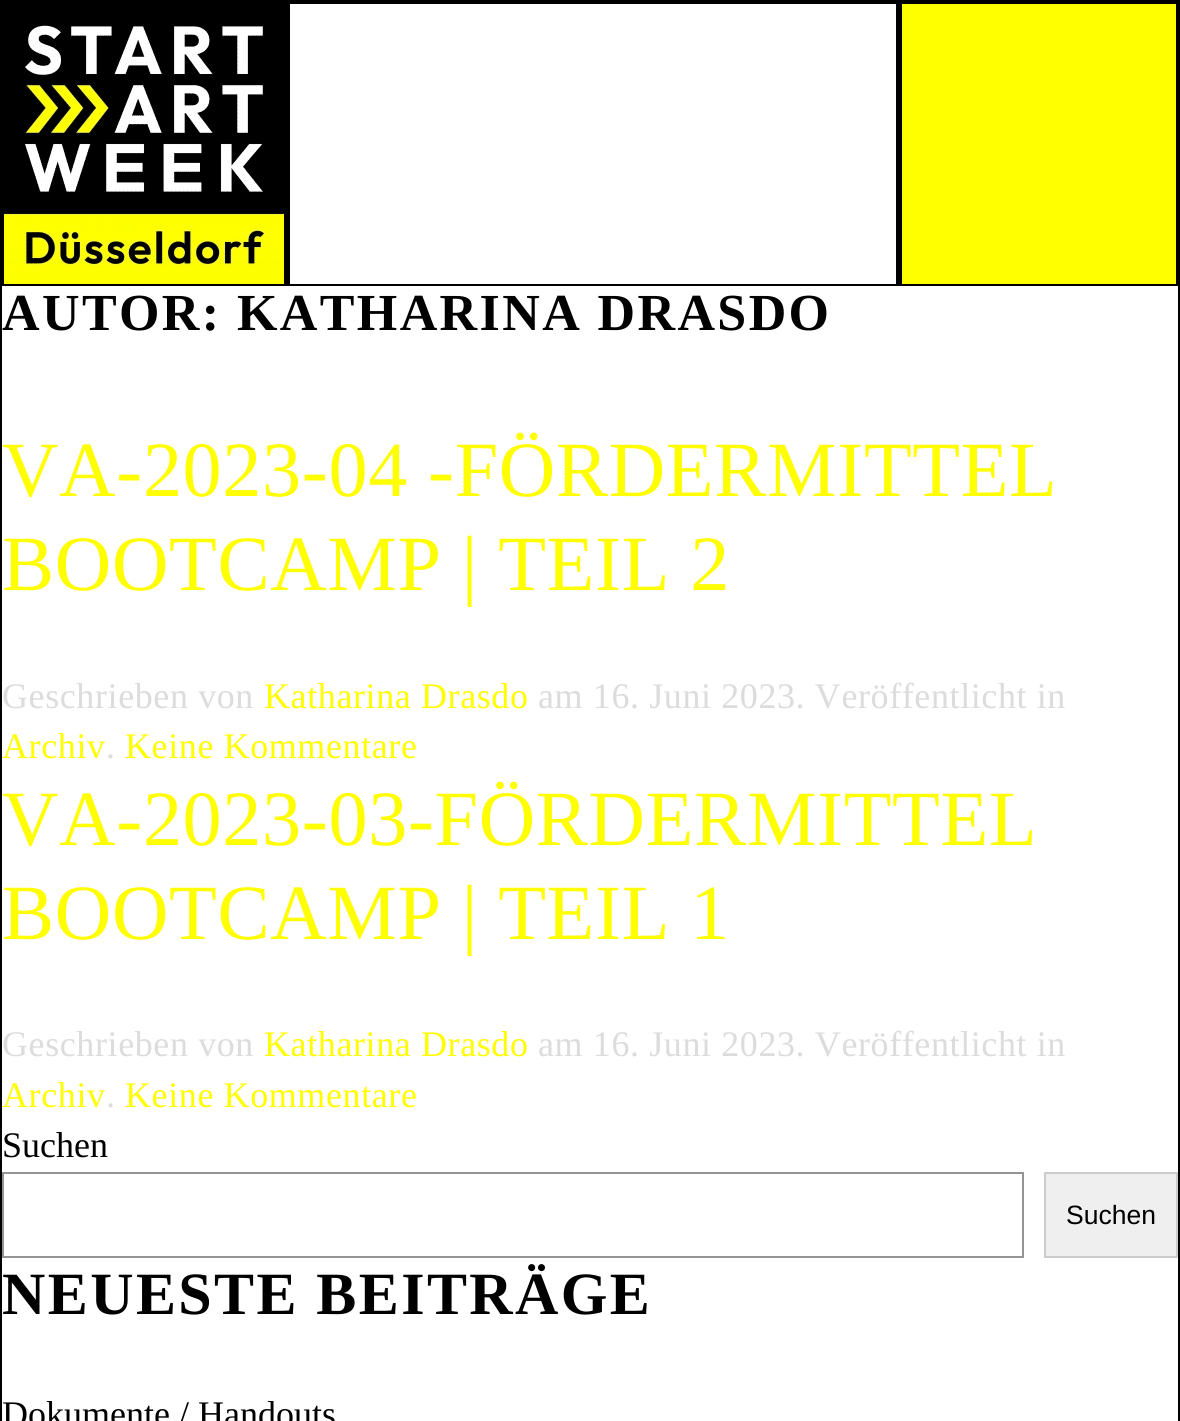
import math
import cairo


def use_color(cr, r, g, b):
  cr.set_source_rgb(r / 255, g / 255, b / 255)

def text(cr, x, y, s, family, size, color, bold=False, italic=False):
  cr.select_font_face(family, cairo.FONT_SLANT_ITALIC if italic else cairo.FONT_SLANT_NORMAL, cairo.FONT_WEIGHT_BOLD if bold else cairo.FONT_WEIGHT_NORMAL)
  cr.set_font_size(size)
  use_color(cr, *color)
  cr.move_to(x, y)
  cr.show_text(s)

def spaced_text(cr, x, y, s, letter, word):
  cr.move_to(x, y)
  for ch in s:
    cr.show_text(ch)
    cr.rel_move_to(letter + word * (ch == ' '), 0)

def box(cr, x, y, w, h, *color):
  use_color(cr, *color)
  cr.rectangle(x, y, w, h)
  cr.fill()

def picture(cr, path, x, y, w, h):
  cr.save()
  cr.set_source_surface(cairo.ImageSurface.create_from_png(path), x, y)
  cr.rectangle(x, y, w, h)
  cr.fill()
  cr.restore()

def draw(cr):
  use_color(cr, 255, 255, 255)
  cr.paint()
  cr.rectangle(1, 1, 1178, 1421)
  use_color(cr, 0, 0, 0)
  cr.stroke()
  cr.rectangle(3, 3, 1174, 282)
  cr.stroke()
  box(cr, 284, 4, 6, 280, 0, 0, 0)
  picture(cr, "img_01.png", 4, 4, 280, 280)
  box(cr, 902, 4, 274, 280, 255, 255, 0)
  box(cr, 896, 4, 6, 280, 0, 0, 0)
  cr.rectangle(3, 1173, 1020, 84)
  use_color(cr, 148, 148, 148)
  cr.stroke()
  use_color(cr, 239, 239, 239)
  cr.rectangle(1045, 1173, 132, 84)
  cr.fill_preserve()
  use_color(cr, 204, 204, 204)
  cr.stroke()
  cr.select_font_face("Liberation Serif", cairo.FONT_SLANT_NORMAL, cairo.FONT_WEIGHT_BOLD)
  cr.set_font_size(52)
  use_color(cr, 0, 0, 0)
  spaced_text(cr, 2, 330, "AUTOR: KATHARINA DRASDO", 2.4, 0)
  cr.select_font_face("Liberation Serif")
  cr.set_font_size(78.25)
  use_color(cr, 255, 255, 0)
  spaced_text(cr, 2, 496, "VA-2023-04 -FÖRDERMITTEL", 0.6, 0)
  spaced_text(cr, 2, 590, "BOOTCAMP | TEIL 2", 0.6, 0)
  cr.set_font_size(36)
  use_color(cr, 220, 220, 220)
  spaced_text(cr, 2, 708, "Geschrieben von", 0.6, 0)
  use_color(cr, 255, 255, 0)
  spaced_text(cr, 264, 708, "Katharina Drasdo", 0.6, 0)
  use_color(cr, 220, 220, 220)
  spaced_text(cr, 538, 708, "am 16. Juni 2023. Veröffentlicht in", 0.6, 0)
  use_color(cr, 255, 255, 0)
  spaced_text(cr, 2, 758, "Archiv", 0.6, 0)
  use_color(cr, 220, 220, 220)
  spaced_text(cr, 106, 758, ".", 0.6, 0)
  use_color(cr, 255, 255, 0)
  spaced_text(cr, 125, 758, "Keine Kommentare", 0.6, 0)
  cr.set_font_size(78.25)
  spaced_text(cr, 2, 845, "VA-2023-03-FÖRDERMITTEL", 0.6, 0)
  spaced_text(cr, 2, 939, "BOOTCAMP | TEIL 1", 0.6, 0)
  cr.set_font_size(36)
  use_color(cr, 220, 220, 220)
  spaced_text(cr, 2, 1056, "Geschrieben von", 0.6, 0)
  use_color(cr, 255, 255, 0)
  spaced_text(cr, 264, 1056, "Katharina Drasdo", 0.6, 0)
  use_color(cr, 220, 220, 220)
  spaced_text(cr, 538, 1056, "am 16. Juni 2023. Veröffentlicht in", 0.6, 0)
  use_color(cr, 255, 255, 0)
  spaced_text(cr, 2, 1107, "Archiv", 0.6, 0)
  use_color(cr, 220, 220, 220)
  spaced_text(cr, 106, 1107, ".", 0.6, 0)
  use_color(cr, 255, 255, 0)
  spaced_text(cr, 125, 1107, "Keine Kommentare", 0.6, 0)
  text(cr, 2, 1157, "Suchen", "Liberation Serif", 36, (0, 0, 0))
  text(cr, 1066, 1224, "Suchen", "Liberation Sans", 26.5, (0, 0, 0))
  cr.select_font_face("Liberation Serif", cairo.FONT_SLANT_NORMAL, cairo.FONT_WEIGHT_BOLD)
  cr.set_font_size(60)
  spaced_text(cr, 2, 1314, "NEUESTE BEITRÄGE", 2.4, 0)
  text(cr, 2, 1426, "Dokumente / Handouts", "Liberation Serif", 36, (0, 0, 0))


surface = cairo.ImageSurface(cairo.FORMAT_RGB24, 1180, 1421)
cr = cairo.Context(surface)
options = cairo.FontOptions()
options.set_hint_metrics(cairo.HINT_METRICS_OFF)
options.set_hint_style(cairo.HINT_STYLE_NONE)
cr.set_font_options(options)
cr.set_miter_limit(4)
draw(cr)
surface.write_to_png("out.png")
